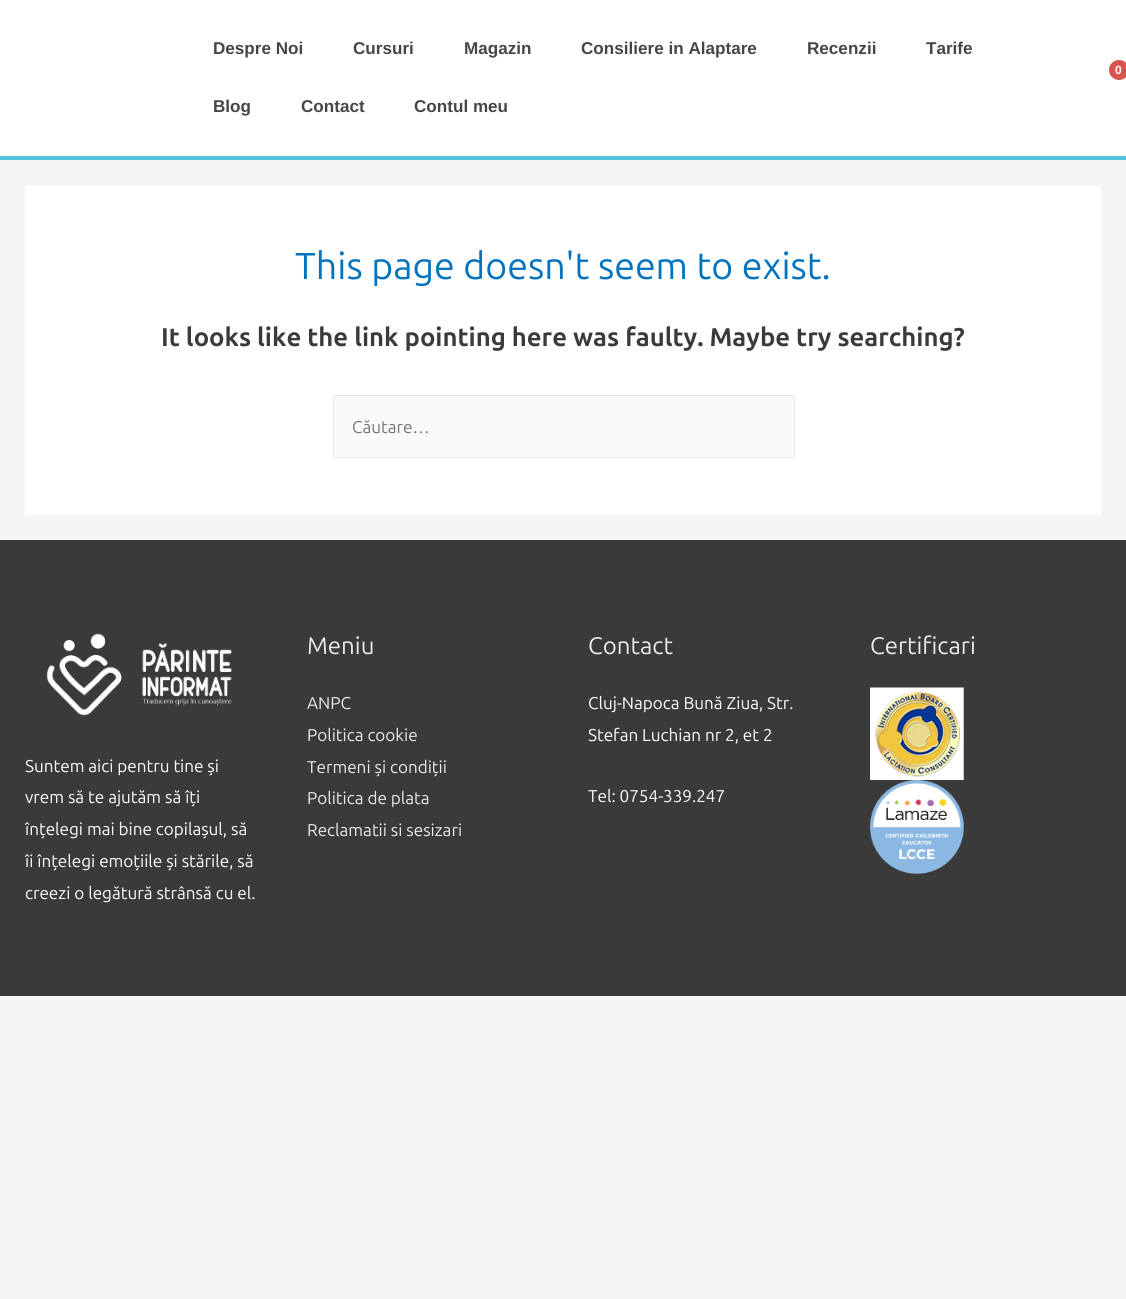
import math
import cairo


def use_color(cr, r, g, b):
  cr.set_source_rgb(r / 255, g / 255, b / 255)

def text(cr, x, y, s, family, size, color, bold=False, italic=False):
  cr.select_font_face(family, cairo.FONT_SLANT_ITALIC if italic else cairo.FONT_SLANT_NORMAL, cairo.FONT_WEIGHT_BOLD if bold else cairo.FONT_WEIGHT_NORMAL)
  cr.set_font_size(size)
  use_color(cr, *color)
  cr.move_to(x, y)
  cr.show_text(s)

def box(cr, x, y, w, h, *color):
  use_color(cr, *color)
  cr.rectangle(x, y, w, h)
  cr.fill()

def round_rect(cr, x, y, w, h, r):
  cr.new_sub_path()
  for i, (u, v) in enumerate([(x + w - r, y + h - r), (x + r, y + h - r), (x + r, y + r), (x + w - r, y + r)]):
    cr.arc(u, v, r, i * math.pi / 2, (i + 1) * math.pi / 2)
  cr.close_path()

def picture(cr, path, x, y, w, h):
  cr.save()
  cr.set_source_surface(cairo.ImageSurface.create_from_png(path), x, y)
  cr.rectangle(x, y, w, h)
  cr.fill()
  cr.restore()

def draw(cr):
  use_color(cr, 245, 245, 245)
  cr.paint()
  box(cr, 0, 0, 1126, 156, 255, 255, 255)
  box(cr, 0, 156, 1126, 4, 83, 198, 223)
  use_color(cr, 217, 83, 79)
  cr.arc(1119, 70, 10, 0, 2 * math.pi)
  cr.fill()
  box(cr, 25, 186, 1076, 329, 255, 255, 255)
  use_color(cr, 250, 250, 250)
  round_rect(cr, 333.5, 395.5, 461, 62, 2)
  cr.fill_preserve()
  use_color(cr, 234, 234, 234)
  cr.set_line_width(1)
  cr.stroke()
  box(cr, 0, 540, 1126, 456, 58, 58, 58)
  picture(cr, "img_01.png", 870, 687, 94, 93)
  picture(cr, "img_02.png", 870, 780, 94, 94)
  picture(cr, "img_03.png", 46, 633, 186, 83)
  text(cr, 213, 54, "Despre Noi", "Liberation Sans", 17.1, (70, 70, 70), bold=True)
  text(cr, 353, 54, "Cursuri", "Liberation Sans", 17.1, (70, 70, 70), bold=True)
  text(cr, 464, 54, "Magazin", "Liberation Sans", 17.1, (70, 70, 70), bold=True)
  text(cr, 581, 54, "Consiliere in Alaptare", "Liberation Sans", 17.1, (70, 70, 70), bold=True)
  text(cr, 807, 54, "Recenzii", "Liberation Sans", 17.1, (70, 70, 70), bold=True)
  text(cr, 926, 54, "Tarife", "Liberation Sans", 17.1, (70, 70, 70), bold=True)
  text(cr, 213, 112, "Blog", "Liberation Sans", 17.1, (70, 70, 70), bold=True)
  text(cr, 301, 112, "Contact", "Liberation Sans", 17.1, (70, 70, 70), bold=True)
  text(cr, 414, 112, "Contul meu", "Liberation Sans", 17.1, (70, 70, 70), bold=True)
  text(cr, 1115, 74, "0", "Liberation Sans", 12, (255, 255, 255), bold=True)
  text(cr, 295, 279, "This page doesn't seem to exist.", "Ubuntu", 37.5, (2, 116, 190))
  text(cr, 161, 346, "It looks like the link pointing here was faulty. Maybe try searching?", "Ubuntu", 25.65, (58, 58, 58), bold=True)
  text(cr, 352, 433, "Căutare…", "Ubuntu", 17.1, (117, 117, 117))
  text(cr, 307, 654, "Meniu", "Ubuntu", 24, (234, 234, 234))
  text(cr, 307, 709, "ANPC", "Ubuntu", 17.1, (234, 234, 234))
  text(cr, 307, 741, "Politica cookie", "Ubuntu", 17.1, (234, 234, 234))
  text(cr, 307, 773, "Termeni și condiții", "Ubuntu", 17.1, (234, 234, 234))
  text(cr, 307, 804, "Politica de plata", "Ubuntu", 17.1, (234, 234, 234))
  text(cr, 307, 836, "Reclamatii si sesizari", "Ubuntu", 17.1, (234, 234, 234))
  text(cr, 588, 654, "Contact", "Ubuntu", 24, (234, 234, 234))
  text(cr, 588, 709, "Cluj-Napoca Bună Ziua, Str.", "Ubuntu", 17.1, (255, 255, 255))
  text(cr, 588, 741, "Stefan Luchian nr 2, et 2", "Ubuntu", 17.1, (255, 255, 255))
  text(cr, 588, 802, "Tel: 0754-339.247", "Ubuntu", 17.1, (255, 255, 255))
  text(cr, 870, 654, "Certificari", "Ubuntu", 24, (234, 234, 234))
  text(cr, 25, 772, "Suntem aici pentru tine și", "Ubuntu", 17.1, (255, 255, 255))
  text(cr, 25, 803, "vrem să te ajutăm să îți", "Ubuntu", 17.1, (255, 255, 255))
  text(cr, 25, 835, "înțelegi mai bine copilașul, să", "Ubuntu", 17.1, (255, 255, 255))
  text(cr, 25, 867, "îi înțelegi emoțiile și stările, să", "Ubuntu", 17.1, (255, 255, 255))
  text(cr, 25, 899, "creezi o legătură strânsă cu el.", "Ubuntu", 17.1, (255, 255, 255))


surface = cairo.ImageSurface(cairo.FORMAT_RGB24, 1126, 1299)
cr = cairo.Context(surface)
options = cairo.FontOptions()
options.set_hint_metrics(cairo.HINT_METRICS_OFF)
options.set_hint_style(cairo.HINT_STYLE_NONE)
cr.set_font_options(options)
cr.set_miter_limit(4)
draw(cr)
surface.write_to_png("out.png")
